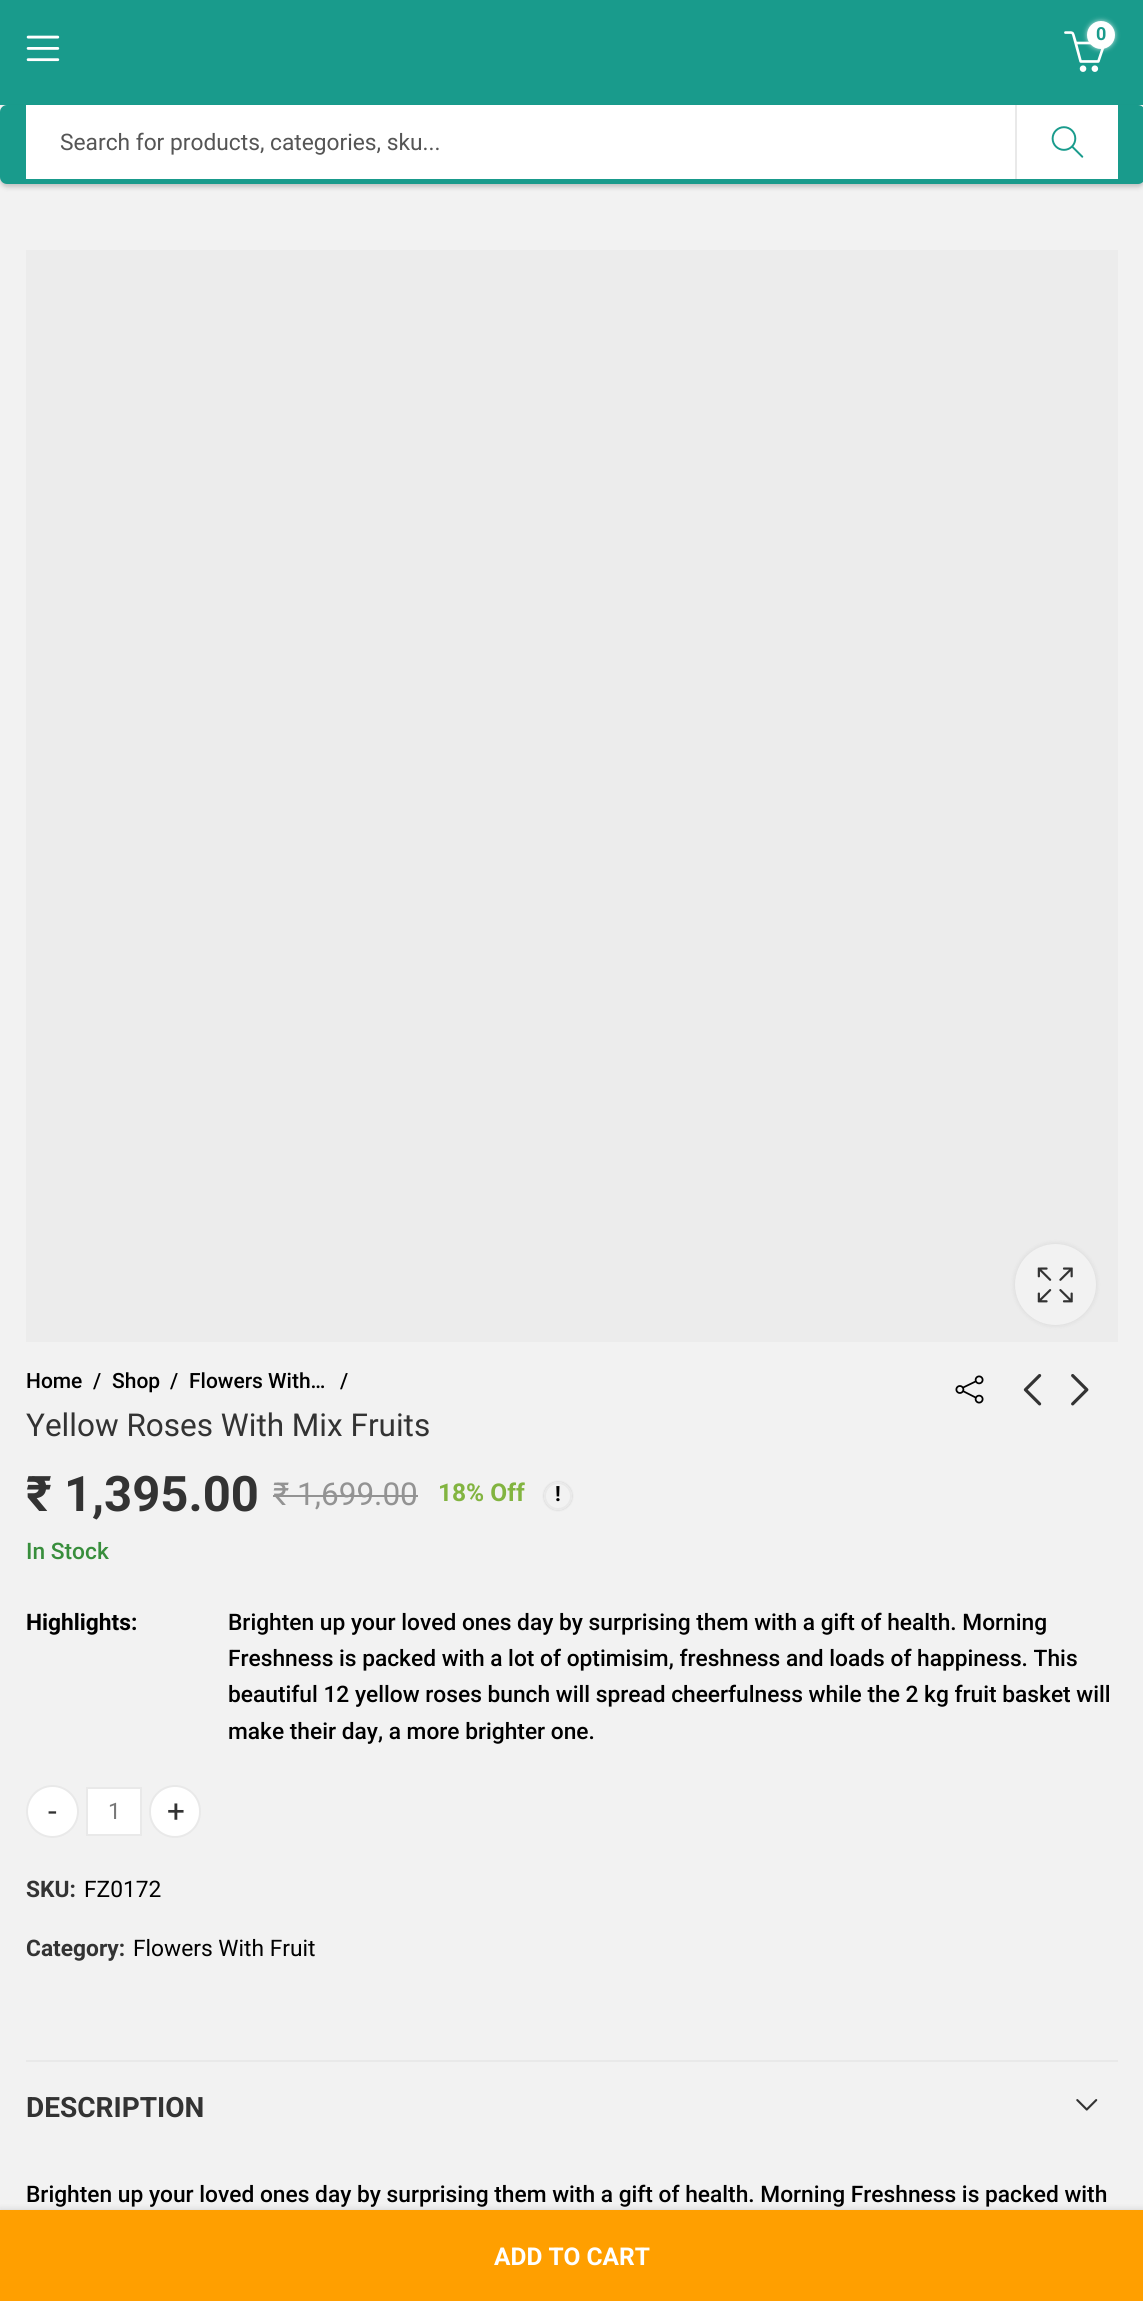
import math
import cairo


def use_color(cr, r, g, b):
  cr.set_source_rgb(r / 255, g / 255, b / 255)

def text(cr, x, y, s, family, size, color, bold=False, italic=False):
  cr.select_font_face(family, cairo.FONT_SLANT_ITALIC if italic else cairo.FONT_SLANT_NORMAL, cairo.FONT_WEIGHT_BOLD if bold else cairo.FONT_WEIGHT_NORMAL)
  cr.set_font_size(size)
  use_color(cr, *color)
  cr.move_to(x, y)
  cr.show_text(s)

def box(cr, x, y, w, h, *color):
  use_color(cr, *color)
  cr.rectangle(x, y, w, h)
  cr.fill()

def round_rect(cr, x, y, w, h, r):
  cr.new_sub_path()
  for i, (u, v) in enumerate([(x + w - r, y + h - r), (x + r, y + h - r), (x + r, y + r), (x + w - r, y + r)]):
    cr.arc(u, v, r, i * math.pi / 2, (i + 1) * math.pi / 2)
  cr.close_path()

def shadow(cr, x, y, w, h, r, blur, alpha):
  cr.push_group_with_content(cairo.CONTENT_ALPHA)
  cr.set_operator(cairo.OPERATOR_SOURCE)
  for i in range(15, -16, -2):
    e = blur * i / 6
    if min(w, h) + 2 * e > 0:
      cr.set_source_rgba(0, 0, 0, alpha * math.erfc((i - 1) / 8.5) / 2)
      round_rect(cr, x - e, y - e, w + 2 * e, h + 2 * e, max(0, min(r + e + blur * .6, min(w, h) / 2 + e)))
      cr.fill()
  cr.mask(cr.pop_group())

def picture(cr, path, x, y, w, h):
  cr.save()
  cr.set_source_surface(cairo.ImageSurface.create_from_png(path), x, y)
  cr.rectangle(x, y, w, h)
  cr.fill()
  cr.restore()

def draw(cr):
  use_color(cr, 242, 242, 242)
  cr.paint()
  box(cr, 0, 0, 1143, 105, 25, 155, 140)
  picture(cr, "img_01.png", 26, 35, 34, 27)
  picture(cr, "img_02.png", 1064, 31, 41, 41)
  use_color(cr, 255, 255, 255)
  shadow(cr, 1087, 21, 28, 28, 14, 2.5, 0.7)
  use_color(cr, 255, 255, 255)
  cr.arc(1101, 35, 14, 0, 2 * math.pi)
  cr.fill()
  use_color(cr, 0, 0, 0)
  shadow(cr, 0, 109, 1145, 78, 7, 2.5, 0.2)
  use_color(cr, 25, 155, 140)
  round_rect(cr, 0, 105, 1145, 79, 7)
  cr.fill()
  box(cr, 26, 105, 989, 74, 255, 255, 255)
  box(cr, 1015, 105, 2, 74, 233, 233, 233)
  box(cr, 1017, 105, 101, 74, 255, 255, 255)
  picture(cr, "img_03.png", 1051, 126, 33, 32)
  box(cr, 26, 250, 1092, 1092, 236, 236, 236)
  use_color(cr, 0, 0, 0)
  shadow(cr, 1015, 1244, 81, 81, 40.5, 2.5, 0.1)
  use_color(cr, 242, 242, 242)
  cr.arc(1055.5, 1284.5, 40.5, 0, 2 * math.pi)
  cr.fill()
  picture(cr, "img_04.png", 1037, 1267, 36, 36)
  picture(cr, "img_05.png", 955, 1375, 29, 29)
  picture(cr, "img_06.png", 1023, 1374, 19, 32)
  picture(cr, "img_07.png", 1071, 1374, 18, 32)
  box(cr, 273, 1495, 145, 2, 147, 147, 147)
  cr.save()
  cr.set_fill_rule(cairo.FILL_RULE_EVEN_ODD)
  cr.new_path()
  cr.move_to(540, 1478)
  cr.line_to(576, 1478)
  cr.line_to(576, 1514)
  cr.line_to(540, 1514)
  cr.close_path()
  cr.move_to(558, 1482)
  cr.curve_to(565.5, 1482, 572, 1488.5, 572, 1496)
  cr.curve_to(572, 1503.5, 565.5, 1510, 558, 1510)
  cr.curve_to(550.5, 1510, 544, 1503.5, 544, 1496)
  cr.curve_to(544, 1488.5, 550.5, 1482, 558, 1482)
  cr.close_path()
  cr.clip()
  use_color(cr, 0, 0, 0)
  shadow(cr, 544, 1482, 28, 28, 14, 1, 0.2)
  cr.restore()
  cr.arc(558, 1496, 13, 0, 2 * math.pi)
  use_color(cr, 233, 233, 233)
  cr.stroke()
  use_color(cr, 255, 255, 255)
  cr.arc(52.5, 1811.5, 25.5, 0, 2 * math.pi)
  cr.fill_preserve()
  use_color(cr, 233, 233, 233)
  cr.stroke()
  use_color(cr, 255, 255, 255)
  cr.rectangle(87, 1788, 54, 47)
  cr.fill_preserve()
  use_color(cr, 233, 233, 233)
  cr.stroke()
  use_color(cr, 255, 255, 255)
  round_rect(cr, 150, 1786, 50, 51, 25)
  cr.fill_preserve()
  use_color(cr, 233, 233, 233)
  cr.stroke()
  use_color(cr, 0, 0, 0)
  shadow(cr, 0, 2210, 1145, 91, 0, 3.5, 0.15)
  box(cr, 0, 2210, 1143, 91, 255, 159, 0)
  box(cr, 26, 2060, 1092, 2, 233, 233, 233)
  picture(cr, "img_08.png", 1076, 2099, 22, 12)
  text(cr, 1096, 40, "0", "Roboto", 18, (25, 155, 140), bold=True)
  text(cr, 60, 150, "Search for products, categories, sku...", "Roboto", 22.75, (85, 85, 85))
  text(cr, 26, 1388, "Home", "Roboto Medium", 21, (0, 0, 0))
  text(cr, 93, 1388, "/", "Roboto Medium", 21, (0, 0, 0))
  text(cr, 112, 1388, "Shop", "Roboto Medium", 21, (0, 0, 0))
  text(cr, 170, 1388, "/", "Roboto Medium", 21, (0, 0, 0))
  text(cr, 189, 1388, "Flowers With…", "Roboto Medium", 21, (0, 0, 0))
  text(cr, 340, 1388, "/", "Roboto Medium", 21, (0, 0, 0))
  text(cr, 26, 1436, "Yellow Roses With Mix Fruits", "Roboto", 31.5, (51, 51, 51))
  text(cr, 26, 1511, "₹ 1,395.00", "Roboto", 49, (51, 51, 51), bold=True)
  text(cr, 273, 1505, "₹ 1,699.00", "Roboto", 31.5, (147, 147, 147))
  text(cr, 438, 1501, "18% Off", "Roboto", 24.5, (130, 180, 64), bold=True)
  text(cr, 555, 1501, "!", "Roboto", 21, (0, 0, 0), bold=True)
  text(cr, 26, 1559, "In Stock", "Roboto Medium", 22.75, (56, 142, 60))
  text(cr, 26, 1630, "Highlights:", "Roboto", 22.75, (0, 0, 0), bold=True)
  text(cr, 228, 1630, "Brighten up your loved ones day by surprising them with a gift of health. Morning", "Roboto Medium", 22.75, (0, 0, 0))
  text(cr, 228, 1666, "Freshness is packed with a lot of optimisim, freshness and loads of happiness. This", "Roboto Medium", 22.75, (0, 0, 0))
  text(cr, 228, 1702, "beautiful 12 yellow roses bunch will spread cheerfulness while the 2 kg fruit basket will", "Roboto Medium", 22.75, (0, 0, 0))
  text(cr, 228, 1739, "make their day, a more brighter one.", "Roboto Medium", 22.75, (0, 0, 0))
  text(cr, 48, 1822, "-", "Roboto", 31.5, (51, 51, 51))
  text(cr, 108, 1819, "1", "Roboto", 22.75, (119, 119, 119))
  text(cr, 167, 1822, "+", "Roboto", 31.5, (51, 51, 51))
  text(cr, 494, 2265, "ADD TO CART", "Roboto", 24.5, (255, 255, 255), bold=True)
  text(cr, 26, 1897, "SKU:", "Roboto", 22.75, (51, 51, 51), bold=True)
  text(cr, 84, 1897, "FZ0172", "Roboto", 22.75, (0, 0, 0))
  text(cr, 26, 1956, "Category:", "Roboto", 22.75, (51, 51, 51), bold=True)
  text(cr, 133, 1956, "Flowers With Fruit", "Roboto", 22.75, (0, 0, 0))
  text(cr, 26, 2117, "DESCRIPTION", "Roboto", 28, (51, 51, 51), bold=True)
  text(cr, 26, 2202, "Brighten up your loved ones day by surprising them with a gift of health. Morning Freshness is packed with", "Roboto Medium", 22.75, (0, 0, 0))


surface = cairo.ImageSurface(cairo.FORMAT_RGB24, 1143, 2301)
cr = cairo.Context(surface)
options = cairo.FontOptions()
options.set_hint_metrics(cairo.HINT_METRICS_OFF)
options.set_hint_style(cairo.HINT_STYLE_NONE)
cr.set_font_options(options)
cr.set_miter_limit(4)
draw(cr)
surface.write_to_png("out.png")
